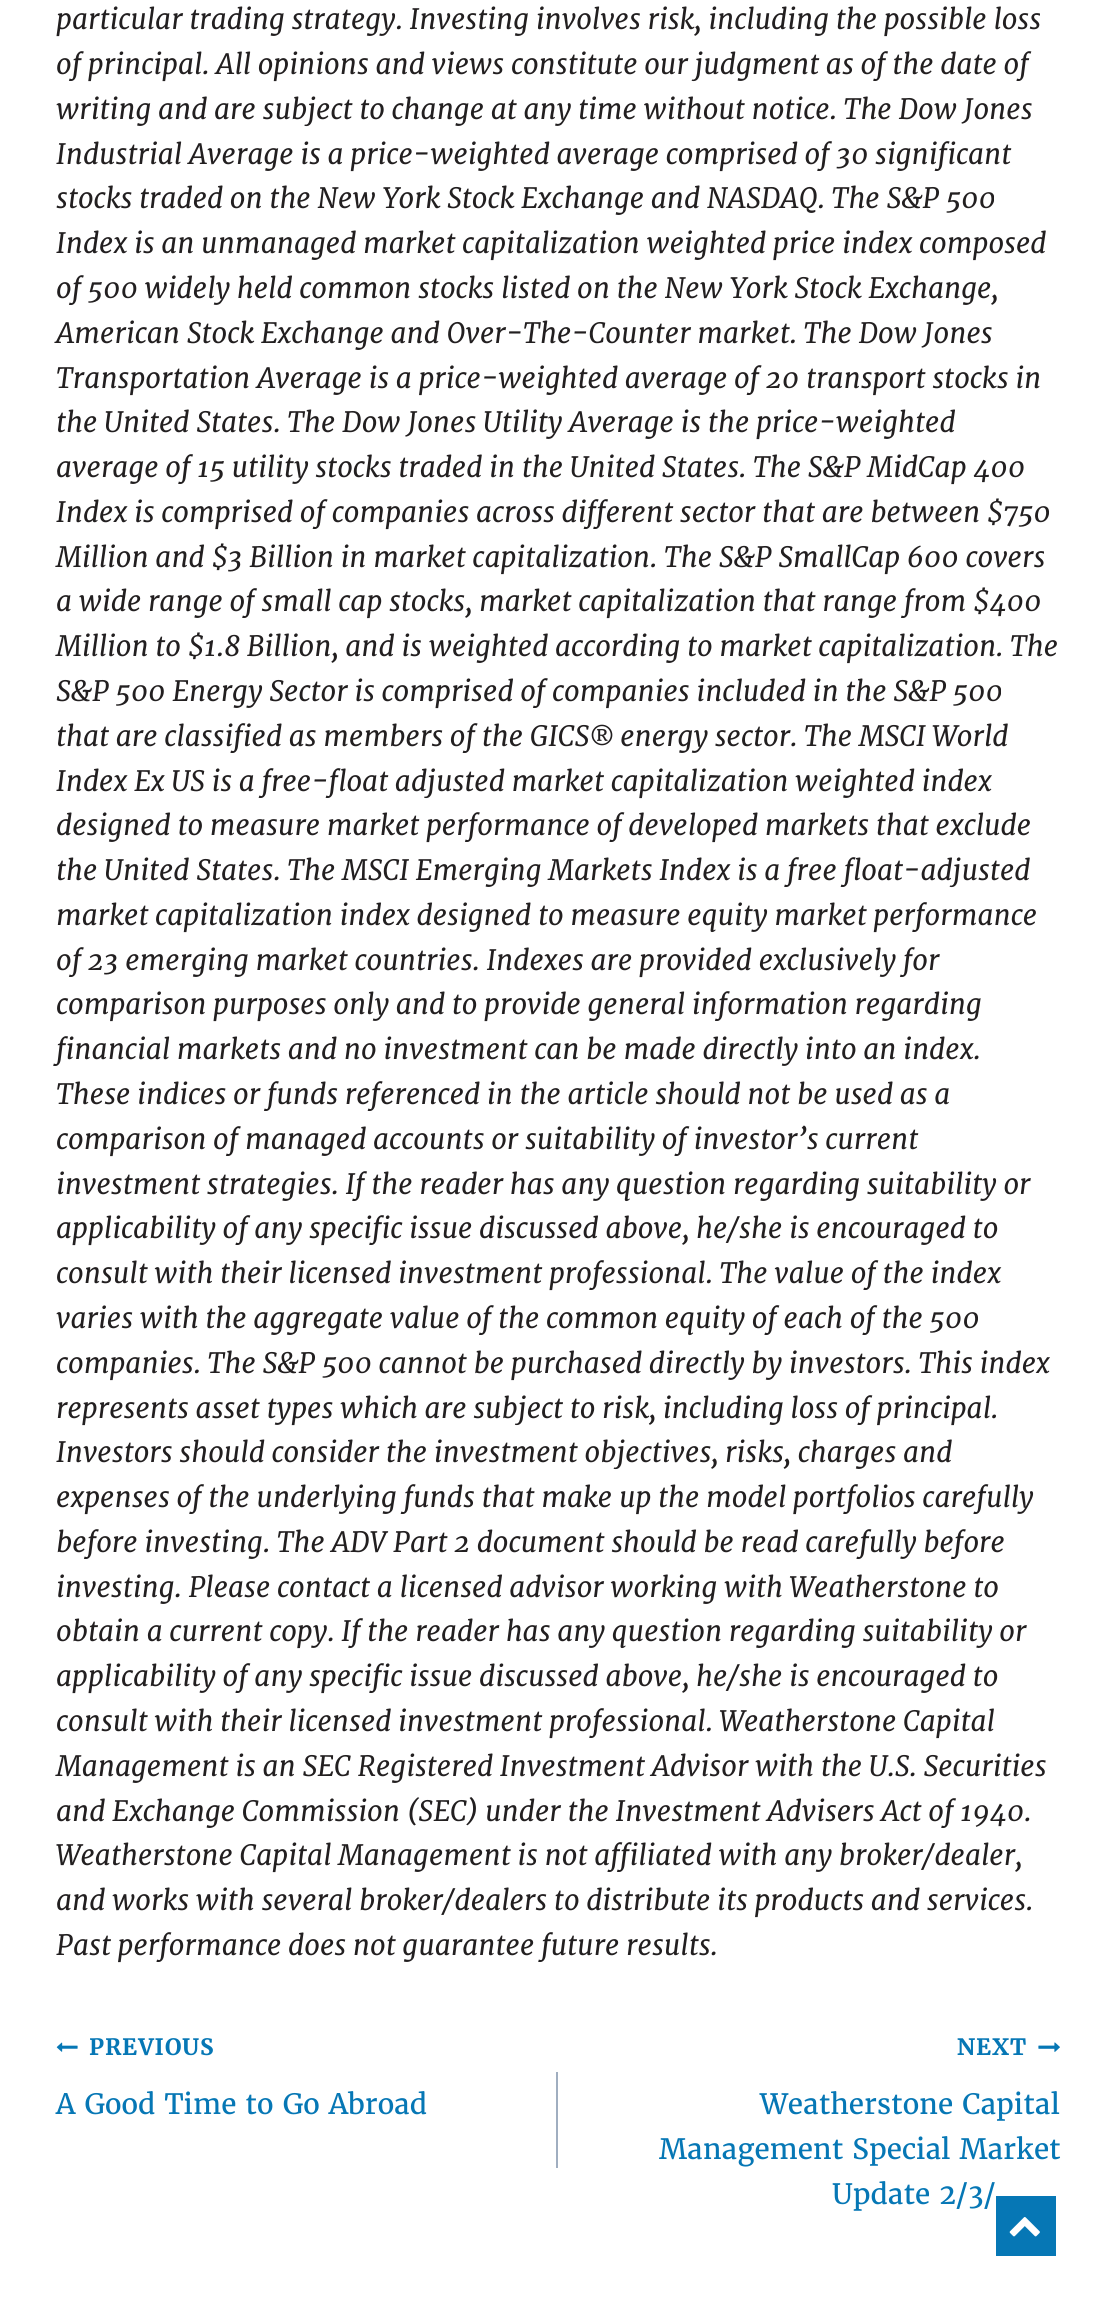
import math
import cairo


def use_color(cr, r, g, b):
  cr.set_source_rgb(r / 255, g / 255, b / 255)

def text(cr, x, y, s, family, size, color, bold=False, italic=False):
  cr.select_font_face(family, cairo.FONT_SLANT_ITALIC if italic else cairo.FONT_SLANT_NORMAL, cairo.FONT_WEIGHT_BOLD if bold else cairo.FONT_WEIGHT_NORMAL)
  cr.set_font_size(size)
  use_color(cr, *color)
  cr.move_to(x, y)
  cr.show_text(s)

def spaced_text(cr, x, y, s, letter, word):
  cr.move_to(x, y)
  for ch in s:
    cr.show_text(ch)
    cr.rel_move_to(letter + word * (ch == ' '), 0)

def box(cr, x, y, w, h, *color):
  use_color(cr, *color)
  cr.rectangle(x, y, w, h)
  cr.fill()

def picture(cr, path, x, y, w, h):
  cr.save()
  cr.set_source_surface(cairo.ImageSurface.create_from_png(path), x, y)
  cr.rectangle(x, y, w, h)
  cr.fill()
  cr.restore()

def draw(cr):
  use_color(cr, 255, 255, 255)
  cr.paint()
  picture(cr, "img_01.png", 56, 2042, 22, 10)
  box(cr, 556, 2072, 2, 96, 160, 174, 192)
  picture(cr, "img_02.png", 1038, 2042, 22, 10)
  box(cr, 996, 2196, 60, 60, 6, 119, 181)
  picture(cr, "img_03.png", 1009, 2217, 31, 20)
  text(cr, 56, 29, "particular trading strategy. Investing involves risk, including the possible loss", "Merriweather", 28, (34, 31, 32), italic=True)
  text(cr, 56, 74, "of principal. All opinions and views constitute our judgment as of the date of", "Merriweather", 28, (34, 31, 32), italic=True)
  text(cr, 56, 119, "writing and are subject to change at any time without notice. The Dow Jones", "Merriweather", 28, (34, 31, 32), italic=True)
  text(cr, 56, 164, "Industrial Average is a price-weighted average comprised of 30 significant", "Merriweather", 28, (34, 31, 32), italic=True)
  text(cr, 56, 208, "stocks traded on the New York Stock Exchange and NASDAQ. The S&P 500", "Merriweather", 28, (34, 31, 32), italic=True)
  text(cr, 56, 253, "Index is an unmanaged market capitalization weighted price index composed", "Merriweather", 28, (34, 31, 32), italic=True)
  text(cr, 56, 298, "of 500 widely held common stocks listed on the New York Stock Exchange,", "Merriweather", 28, (34, 31, 32), italic=True)
  text(cr, 56, 343, "American Stock Exchange and Over-The-Counter market. The Dow Jones", "Merriweather", 28, (34, 31, 32), italic=True)
  text(cr, 56, 388, "Transportation Average is a price-weighted average of 20 transport stocks in", "Merriweather", 28, (34, 31, 32), italic=True)
  text(cr, 56, 432, "the United States. The Dow Jones Utility Average is the price-weighted", "Merriweather", 28, (34, 31, 32), italic=True)
  text(cr, 56, 477, "average of 15 utility stocks traded in the United States. The S&P MidCap 400", "Merriweather", 28, (34, 31, 32), italic=True)
  text(cr, 56, 522, "Index is comprised of companies across different sector that are between $750", "Merriweather", 28, (34, 31, 32), italic=True)
  text(cr, 56, 567, "Million and $3 Billion in market capitalization. The S&P SmallCap 600 covers", "Merriweather", 28, (34, 31, 32), italic=True)
  text(cr, 56, 611, "a wide range of small cap stocks, market capitalization that range from $400", "Merriweather", 28, (34, 31, 32), italic=True)
  text(cr, 56, 656, "Million to $1.8 Billion, and is weighted according to market capitalization. The", "Merriweather", 28, (34, 31, 32), italic=True)
  text(cr, 56, 701, "S&P 500 Energy Sector is comprised of companies included in the S&P 500", "Merriweather", 28, (34, 31, 32), italic=True)
  text(cr, 56, 746, "that are classified as members of the GICS® energy sector. The MSCI World", "Merriweather", 28, (34, 31, 32), italic=True)
  text(cr, 56, 791, "Index Ex US is a free-float adjusted market capitalization weighted index", "Merriweather", 28, (34, 31, 32), italic=True)
  text(cr, 56, 835, "designed to measure market performance of developed markets that exclude", "Merriweather", 28, (34, 31, 32), italic=True)
  text(cr, 56, 880, "the United States. The MSCI Emerging Markets Index is a free float-adjusted", "Merriweather", 28, (34, 31, 32), italic=True)
  text(cr, 56, 925, "market capitalization index designed to measure equity market performance", "Merriweather", 28, (34, 31, 32), italic=True)
  text(cr, 56, 970, "of 23 emerging market countries. Indexes are provided exclusively for", "Merriweather", 28, (34, 31, 32), italic=True)
  text(cr, 56, 1014, "comparison purposes only and to provide general information regarding", "Merriweather", 28, (34, 31, 32), italic=True)
  text(cr, 56, 1059, "financial markets and no investment can be made directly into an index.", "Merriweather", 28, (34, 31, 32), italic=True)
  text(cr, 56, 1104, "These indices or funds referenced in the article should not be used as a", "Merriweather", 28, (34, 31, 32), italic=True)
  text(cr, 56, 1149, "comparison of managed accounts or suitability of investor’s current", "Merriweather", 28, (34, 31, 32), italic=True)
  text(cr, 56, 1194, "investment strategies. If the reader has any question regarding suitability or", "Merriweather", 28, (34, 31, 32), italic=True)
  text(cr, 56, 1238, "applicability of any specific issue discussed above, he/she is encouraged to", "Merriweather", 28, (34, 31, 32), italic=True)
  text(cr, 56, 1283, "consult with their licensed investment professional. The value of the index", "Merriweather", 28, (34, 31, 32), italic=True)
  text(cr, 56, 1328, "varies with the aggregate value of the common equity of each of the 500", "Merriweather", 28, (34, 31, 32), italic=True)
  text(cr, 56, 1373, "companies. The S&P 500 cannot be purchased directly by investors. This index", "Merriweather", 28, (34, 31, 32), italic=True)
  text(cr, 56, 1418, "represents asset types which are subject to risk, including loss of principal.", "Merriweather", 28, (34, 31, 32), italic=True)
  text(cr, 56, 1462, "Investors should consider the investment objectives, risks, charges and", "Merriweather", 28, (34, 31, 32), italic=True)
  text(cr, 56, 1507, "expenses of the underlying funds that make up the model portfolios carefully", "Merriweather", 28, (34, 31, 32), italic=True)
  text(cr, 56, 1552, "before investing. The ADV Part 2 document should be read carefully before", "Merriweather", 28, (34, 31, 32), italic=True)
  text(cr, 56, 1597, "investing. Please contact a licensed advisor working with Weatherstone to", "Merriweather", 28, (34, 31, 32), italic=True)
  text(cr, 56, 1641, "obtain a current copy. If the reader has any question regarding suitability or", "Merriweather", 28, (34, 31, 32), italic=True)
  text(cr, 56, 1686, "applicability of any specific issue discussed above, he/she is encouraged to", "Merriweather", 28, (34, 31, 32), italic=True)
  text(cr, 56, 1731, "consult with their licensed investment professional. Weatherstone Capital", "Merriweather", 28, (34, 31, 32), italic=True)
  text(cr, 56, 1776, "Management is an SEC Registered Investment Advisor with the U.S. Securities", "Merriweather", 28, (34, 31, 32), italic=True)
  text(cr, 56, 1821, "and Exchange Commission (SEC) under the Investment Advisers Act of 1940.", "Merriweather", 28, (34, 31, 32), italic=True)
  text(cr, 56, 1865, "Weatherstone Capital Management is not affiliated with any broker/dealer,", "Merriweather", 28, (34, 31, 32), italic=True)
  text(cr, 56, 1910, "and works with several broker/dealers to distribute its products and services.", "Merriweather", 28, (34, 31, 32), italic=True)
  text(cr, 56, 1955, "Past performance does not guarantee future results.", "Merriweather", 28, (34, 31, 32), italic=True)
  cr.select_font_face("Merriweather", cairo.FONT_SLANT_NORMAL, cairo.FONT_WEIGHT_BOLD)
  cr.set_font_size(22.5)
  use_color(cr, 6, 119, 181)
  spaced_text(cr, 89, 2055, "PREVIOUS", 1, 0)
  text(cr, 56, 2114, "A Good Time to Go Abroad", "Merriweather", 28, (6, 119, 181))
  cr.select_font_face("Merriweather", cairo.FONT_SLANT_NORMAL, cairo.FONT_WEIGHT_BOLD)
  cr.set_font_size(22.5)
  spaced_text(cr, 957, 2055, "NEXT", 1, 0)
  text(cr, 760, 2114, "Weatherstone Capital", "Merriweather", 28, (6, 119, 181))
  text(cr, 659, 2159, "Management Special Market", "Merriweather", 28, (6, 119, 181))
  text(cr, 832, 2204, "Update 2/3/", "Merriweather", 28, (6, 119, 181))


surface = cairo.ImageSurface(cairo.FORMAT_RGB24, 1115, 2315)
cr = cairo.Context(surface)
options = cairo.FontOptions()
options.set_hint_metrics(cairo.HINT_METRICS_OFF)
options.set_hint_style(cairo.HINT_STYLE_NONE)
cr.set_font_options(options)
cr.set_miter_limit(4)
draw(cr)
surface.write_to_png("out.png")
